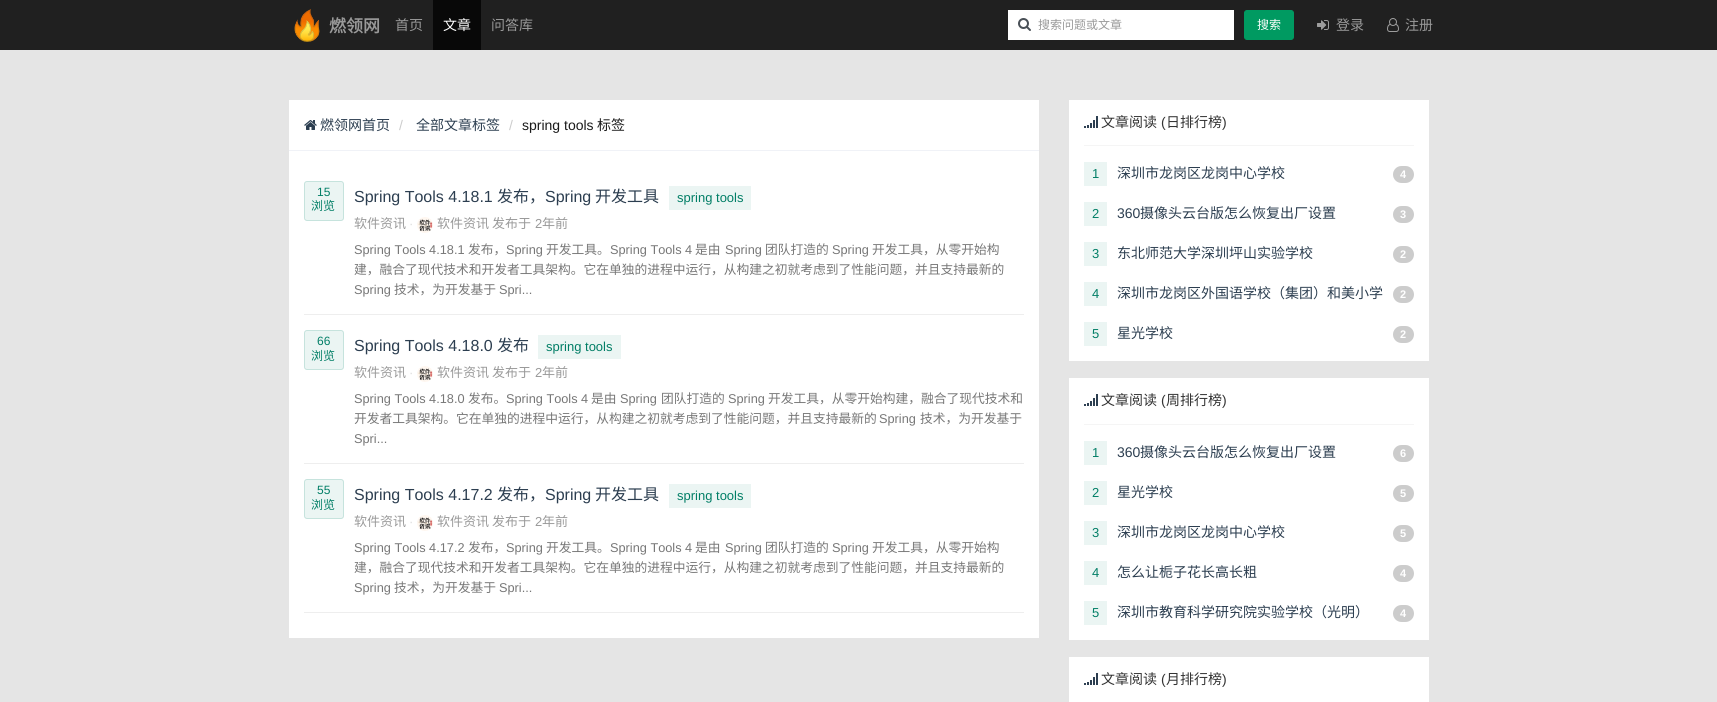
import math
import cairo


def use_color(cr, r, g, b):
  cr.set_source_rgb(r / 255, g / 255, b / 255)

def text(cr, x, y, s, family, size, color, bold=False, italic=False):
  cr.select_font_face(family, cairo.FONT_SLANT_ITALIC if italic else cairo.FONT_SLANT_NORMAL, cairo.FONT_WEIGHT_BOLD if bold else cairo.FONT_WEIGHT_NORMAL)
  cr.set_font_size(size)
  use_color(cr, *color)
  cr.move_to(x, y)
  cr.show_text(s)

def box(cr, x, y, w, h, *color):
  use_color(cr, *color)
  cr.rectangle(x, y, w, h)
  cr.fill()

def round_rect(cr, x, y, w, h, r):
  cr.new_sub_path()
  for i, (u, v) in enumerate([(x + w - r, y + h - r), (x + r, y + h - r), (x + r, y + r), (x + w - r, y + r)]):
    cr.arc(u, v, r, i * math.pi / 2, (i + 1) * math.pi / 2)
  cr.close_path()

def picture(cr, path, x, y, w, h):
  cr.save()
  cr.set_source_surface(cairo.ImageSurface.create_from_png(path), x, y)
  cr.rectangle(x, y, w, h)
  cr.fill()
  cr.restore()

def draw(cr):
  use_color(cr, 229, 229, 229)
  cr.paint()
  box(cr, 0, 0, 1717, 50, 32, 32, 32)
  picture(cr, "img_01.png", 294, 9, 26, 33)
  box(cr, 433, 0, 48, 50, 8, 8, 8)
  box(cr, 1008, 10, 226, 30, 255, 255, 255)
  picture(cr, "img_02.png", 1018, 18, 13, 13)
  use_color(cr, 0, 154, 97)
  round_rect(cr, 1244.5, 10.5, 49, 29, 2.5)
  cr.fill_preserve()
  cr.set_line_width(1)
  cr.stroke()
  picture(cr, "img_03.png", 1317, 20, 12, 10)
  picture(cr, "img_04.png", 1387, 18, 12, 14)
  box(cr, 289, 150, 750, 1, 240, 242, 247)
  box(cr, 289, 100, 750, 50, 255, 255, 255)
  picture(cr, "img_05.png", 304, 120, 13, 10)
  box(cr, 289, 151, 750, 487, 255, 255, 255)
  box(cr, 304, 314, 720, 1, 238, 238, 238)
  use_color(cr, 235, 245, 243)
  round_rect(cr, 304, 181, 40, 40, 3)
  cr.fill()
  round_rect(cr, 304.5, 181.5, 39, 39, 2.5)
  cr.set_source_rgba(0.004, 0.494, 0.4, 0.16)
  cr.stroke()
  box(cr, 669, 186, 82, 24, 235, 245, 243)
  picture(cr, "img_06.png", 417, 217, 16, 16)
  box(cr, 304, 463, 720, 1, 238, 238, 238)
  use_color(cr, 235, 245, 243)
  round_rect(cr, 304, 330, 40, 40, 3)
  cr.fill()
  round_rect(cr, 304.5, 330.5, 39, 39, 2.5)
  cr.set_source_rgba(0.004, 0.494, 0.4, 0.16)
  cr.stroke()
  box(cr, 538, 335, 83, 24, 235, 245, 243)
  picture(cr, "img_06.png", 417, 366, 16, 16)
  box(cr, 304, 612, 720, 1, 238, 238, 238)
  use_color(cr, 235, 245, 243)
  round_rect(cr, 304, 479, 40, 40, 3)
  cr.fill()
  round_rect(cr, 304.5, 479.5, 39, 39, 2.5)
  cr.set_source_rgba(0.004, 0.494, 0.4, 0.16)
  cr.stroke()
  box(cr, 669, 484, 82, 24, 235, 245, 243)
  picture(cr, "img_06.png", 417, 515, 16, 16)
  box(cr, 1069, 100, 360, 261, 255, 255, 255)
  box(cr, 1084, 145, 330, 1, 245, 245, 245)
  picture(cr, "img_07.png", 1084, 116, 14, 12)
  box(cr, 1084, 162, 23, 24, 235, 245, 243)
  use_color(cr, 204, 204, 204)
  round_rect(cr, 1393, 166, 21, 17, 8.5)
  cr.fill()
  box(cr, 1084, 202, 23, 24, 235, 245, 243)
  use_color(cr, 204, 204, 204)
  round_rect(cr, 1393, 206, 21, 17, 8.5)
  cr.fill()
  box(cr, 1084, 242, 23, 24, 235, 245, 243)
  use_color(cr, 204, 204, 204)
  round_rect(cr, 1393, 246, 21, 17, 8.5)
  cr.fill()
  box(cr, 1084, 282, 23, 24, 235, 245, 243)
  use_color(cr, 204, 204, 204)
  round_rect(cr, 1393, 286, 21, 17, 8.5)
  cr.fill()
  box(cr, 1084, 322, 23, 24, 235, 245, 243)
  use_color(cr, 204, 204, 204)
  round_rect(cr, 1393, 326, 21, 17, 8.5)
  cr.fill()
  box(cr, 1069, 378, 360, 262, 255, 255, 255)
  box(cr, 1084, 424, 330, 1, 245, 245, 245)
  picture(cr, "img_07.png", 1084, 394, 14, 12)
  box(cr, 1084, 441, 23, 24, 235, 245, 243)
  use_color(cr, 204, 204, 204)
  round_rect(cr, 1393, 445, 21, 17, 8.5)
  cr.fill()
  box(cr, 1084, 481, 23, 24, 235, 245, 243)
  use_color(cr, 204, 204, 204)
  round_rect(cr, 1393, 485, 21, 17, 8.5)
  cr.fill()
  box(cr, 1084, 521, 23, 24, 235, 245, 243)
  use_color(cr, 204, 204, 204)
  round_rect(cr, 1393, 525, 21, 17, 8.5)
  cr.fill()
  box(cr, 1084, 561, 23, 24, 235, 245, 243)
  use_color(cr, 204, 204, 204)
  round_rect(cr, 1393, 565, 21, 17, 8.5)
  cr.fill()
  box(cr, 1084, 601, 23, 24, 235, 245, 243)
  use_color(cr, 204, 204, 204)
  round_rect(cr, 1393, 605, 21, 17, 8.5)
  cr.fill()
  box(cr, 1069, 657, 360, 45, 255, 255, 255)
  picture(cr, "img_07.png", 1084, 673, 14, 12)
  text(cr, 329, 32, "燃领网", "Noto Sans CJK SC", 17, (153, 153, 153), bold=True)
  text(cr, 395, 30, "首页", "Noto Sans CJK SC", 14, (153, 153, 153))
  text(cr, 443, 30, "文章", "Noto Sans CJK SC", 14, (255, 255, 255))
  text(cr, 491, 30, "问答库", "Noto Sans CJK SC", 14, (153, 153, 153))
  text(cr, 1038, 29, "搜索问题或文章", "Noto Sans CJK SC", 12, (153, 153, 153))
  text(cr, 1257, 29, "搜索", "Noto Sans CJK SC", 12, (255, 255, 255))
  text(cr, 1336, 30, "登录", "Noto Sans CJK SC", 14, (153, 153, 153))
  text(cr, 1405, 30, "注册", "Noto Sans CJK SC", 14, (153, 153, 153))
  text(cr, 320, 130, "燃领网首页", "Noto Sans CJK SC", 14, (44, 62, 80))
  text(cr, 399, 130, "/", "Liberation Sans", 14, (204, 204, 204))
  text(cr, 416, 130, "全部文章标签", "Noto Sans CJK SC", 14, (44, 62, 80))
  text(cr, 509, 130, "/", "Liberation Sans", 14, (204, 204, 204))
  text(cr, 522, 130, "spring tools", "Liberation Sans", 14, (26, 26, 26))
  text(cr, 597, 130, "标签", "Noto Sans CJK SC", 14, (26, 26, 26))
  text(cr, 317, 196, "15", "Liberation Sans", 12, (1, 126, 102))
  text(cr, 311, 210, "浏览", "Noto Sans CJK SC", 12, (1, 126, 102))
  text(cr, 354, 202, "Spring Tools 4.18.1", "Liberation Sans", 16, (44, 62, 80))
  text(cr, 497, 202, "发布，", "Noto Sans CJK SC", 16, (44, 62, 80))
  text(cr, 545, 202, "Spring", "Liberation Sans", 16, (44, 62, 80))
  text(cr, 595, 202, "开发工具", "Noto Sans CJK SC", 16, (44, 62, 80))
  text(cr, 677, 202, "spring tools", "Liberation Sans", 13, (1, 126, 102))
  text(cr, 354, 228, "软件资讯", "Noto Sans CJK SC", 13, (153, 153, 153))
  text(cr, 409, 228, "·", "Liberation Sans", 13, (221, 221, 221))
  text(cr, 437, 228, "软件资讯", "Noto Sans CJK SC", 13, (153, 153, 153))
  text(cr, 492, 228, "发布于", "Noto Sans CJK SC", 13, (153, 153, 153))
  text(cr, 535, 228, "2", "Liberation Sans", 13, (153, 153, 153))
  text(cr, 542, 228, "年前", "Noto Sans CJK SC", 13, (153, 153, 153))
  text(cr, 354, 254, "Spring Tools 4.18.1", "Liberation Sans", 12.75, (119, 119, 119))
  text(cr, 468, 254, "发布，", "Noto Sans CJK SC", 12.75, (119, 119, 119))
  text(cr, 506, 254, "Spring", "Liberation Sans", 12.75, (119, 119, 119))
  text(cr, 546, 254, "开发工具。", "Noto Sans CJK SC", 12.75, (119, 119, 119))
  text(cr, 610, 254, "Spring Tools 4", "Liberation Sans", 12.75, (119, 119, 119))
  text(cr, 695, 254, "是由", "Noto Sans CJK SC", 12.75, (119, 119, 119))
  text(cr, 725, 254, "Spring", "Liberation Sans", 12.75, (119, 119, 119))
  text(cr, 765, 254, "团队打造的", "Noto Sans CJK SC", 12.75, (119, 119, 119))
  text(cr, 832, 254, "Spring", "Liberation Sans", 12.75, (119, 119, 119))
  text(cr, 872, 254, "开发工具，从零开始构", "Noto Sans CJK SC", 12.75, (119, 119, 119))
  text(cr, 354, 274, "建，融合了现代技术和开发者工具架构。它在单独的进程中运行，从构建之初就考虑到了性能问题，并且支持最新的", "Noto Sans CJK SC", 12.75, (119, 119, 119))
  text(cr, 354, 294, "Spring", "Liberation Sans", 12.75, (119, 119, 119))
  text(cr, 394, 294, "技术，为开发基于", "Noto Sans CJK SC", 12.75, (119, 119, 119))
  text(cr, 499, 294, "Spri...", "Liberation Sans", 12.75, (119, 119, 119))
  text(cr, 317, 345, "66", "Liberation Sans", 12, (1, 126, 102))
  text(cr, 311, 360, "浏览", "Noto Sans CJK SC", 12, (1, 126, 102))
  text(cr, 354, 351, "Spring Tools 4.18.0", "Liberation Sans", 16, (44, 62, 80))
  text(cr, 497, 351, "发布", "Noto Sans CJK SC", 16, (44, 62, 80))
  text(cr, 546, 351, "spring tools", "Liberation Sans", 13, (1, 126, 102))
  text(cr, 354, 377, "软件资讯", "Noto Sans CJK SC", 13, (153, 153, 153))
  text(cr, 409, 377, "·", "Liberation Sans", 13, (221, 221, 221))
  text(cr, 437, 377, "软件资讯", "Noto Sans CJK SC", 13, (153, 153, 153))
  text(cr, 492, 377, "发布于", "Noto Sans CJK SC", 13, (153, 153, 153))
  text(cr, 535, 377, "2", "Liberation Sans", 13, (153, 153, 153))
  text(cr, 542, 377, "年前", "Noto Sans CJK SC", 13, (153, 153, 153))
  text(cr, 354, 403, "Spring Tools 4.18.0", "Liberation Sans", 12.75, (119, 119, 119))
  text(cr, 468, 403, "发布。", "Noto Sans CJK SC", 12.75, (119, 119, 119))
  text(cr, 506, 403, "Spring Tools 4", "Liberation Sans", 12.75, (119, 119, 119))
  text(cr, 591, 403, "是由", "Noto Sans CJK SC", 12.75, (119, 119, 119))
  text(cr, 620, 403, "Spring", "Liberation Sans", 12.75, (119, 119, 119))
  text(cr, 661, 403, "团队打造的", "Noto Sans CJK SC", 12.75, (119, 119, 119))
  text(cr, 728, 403, "Spring", "Liberation Sans", 12.75, (119, 119, 119))
  text(cr, 768, 403, "开发工具，从零开始构建，融合了现代技术和", "Noto Sans CJK SC", 12.75, (119, 119, 119))
  text(cr, 354, 423, "开发者工具架构。它在单独的进程中运行，从构建之初就考虑到了性能问题，并且支持最新的", "Noto Sans CJK SC", 12.75, (119, 119, 119))
  text(cr, 879, 423, "Spring", "Liberation Sans", 12.75, (119, 119, 119))
  text(cr, 920, 423, "技术，为开发基于", "Noto Sans CJK SC", 12.75, (119, 119, 119))
  text(cr, 354, 443, "Spri...", "Liberation Sans", 12.75, (119, 119, 119))
  text(cr, 317, 494, "55", "Liberation Sans", 12, (1, 126, 102))
  text(cr, 311, 509, "浏览", "Noto Sans CJK SC", 12, (1, 126, 102))
  text(cr, 354, 500, "Spring Tools 4.17.2", "Liberation Sans", 16, (44, 62, 80))
  text(cr, 497, 500, "发布，", "Noto Sans CJK SC", 16, (44, 62, 80))
  text(cr, 545, 500, "Spring", "Liberation Sans", 16, (44, 62, 80))
  text(cr, 595, 500, "开发工具", "Noto Sans CJK SC", 16, (44, 62, 80))
  text(cr, 677, 500, "spring tools", "Liberation Sans", 13, (1, 126, 102))
  text(cr, 354, 526, "软件资讯", "Noto Sans CJK SC", 13, (153, 153, 153))
  text(cr, 409, 526, "·", "Liberation Sans", 13, (221, 221, 221))
  text(cr, 437, 526, "软件资讯", "Noto Sans CJK SC", 13, (153, 153, 153))
  text(cr, 492, 526, "发布于", "Noto Sans CJK SC", 13, (153, 153, 153))
  text(cr, 535, 526, "2", "Liberation Sans", 13, (153, 153, 153))
  text(cr, 542, 526, "年前", "Noto Sans CJK SC", 13, (153, 153, 153))
  text(cr, 354, 552, "Spring Tools 4.17.2", "Liberation Sans", 12.75, (119, 119, 119))
  text(cr, 468, 552, "发布，", "Noto Sans CJK SC", 12.75, (119, 119, 119))
  text(cr, 506, 552, "Spring", "Liberation Sans", 12.75, (119, 119, 119))
  text(cr, 546, 552, "开发工具。", "Noto Sans CJK SC", 12.75, (119, 119, 119))
  text(cr, 610, 552, "Spring Tools 4", "Liberation Sans", 12.75, (119, 119, 119))
  text(cr, 695, 552, "是由", "Noto Sans CJK SC", 12.75, (119, 119, 119))
  text(cr, 725, 552, "Spring", "Liberation Sans", 12.75, (119, 119, 119))
  text(cr, 765, 552, "团队打造的", "Noto Sans CJK SC", 12.75, (119, 119, 119))
  text(cr, 832, 552, "Spring", "Liberation Sans", 12.75, (119, 119, 119))
  text(cr, 872, 552, "开发工具，从零开始构", "Noto Sans CJK SC", 12.75, (119, 119, 119))
  text(cr, 354, 572, "建，融合了现代技术和开发者工具架构。它在单独的进程中运行，从构建之初就考虑到了性能问题，并且支持最新的", "Noto Sans CJK SC", 12.75, (119, 119, 119))
  text(cr, 354, 592, "Spring", "Liberation Sans", 12.75, (119, 119, 119))
  text(cr, 394, 592, "技术，为开发基于", "Noto Sans CJK SC", 12.75, (119, 119, 119))
  text(cr, 499, 592, "Spri...", "Liberation Sans", 12.75, (119, 119, 119))
  text(cr, 1101, 127, "文章阅读", "Noto Sans CJK SC", 14, (51, 51, 51))
  text(cr, 1161, 127, "(", "Liberation Sans", 14, (51, 51, 51))
  text(cr, 1166, 127, "日排行榜", "Noto Sans CJK SC", 14, (51, 51, 51))
  text(cr, 1222, 127, ")", "Liberation Sans", 14, (51, 51, 51))
  text(cr, 1092, 178, "1", "Liberation Sans", 13, (1, 126, 102))
  text(cr, 1117, 178, "深圳市龙岗区龙岗中心学校", "Noto Sans CJK SC", 14, (44, 62, 80))
  text(cr, 1400, 178, "4", "Liberation Sans", 11, (255, 255, 255), bold=True)
  text(cr, 1092, 218, "2", "Liberation Sans", 13, (1, 126, 102))
  text(cr, 1117, 218, "360", "Liberation Sans", 14, (44, 62, 80))
  text(cr, 1140, 218, "摄像头云台版怎么恢复出厂设置", "Noto Sans CJK SC", 14, (44, 62, 80))
  text(cr, 1400, 218, "3", "Liberation Sans", 11, (255, 255, 255), bold=True)
  text(cr, 1092, 258, "3", "Liberation Sans", 13, (1, 126, 102))
  text(cr, 1117, 258, "东北师范大学深圳坪山实验学校", "Noto Sans CJK SC", 14, (44, 62, 80))
  text(cr, 1400, 258, "2", "Liberation Sans", 11, (255, 255, 255), bold=True)
  text(cr, 1092, 298, "4", "Liberation Sans", 13, (1, 126, 102))
  text(cr, 1117, 298, "深圳市龙岗区外国语学校（集团）和美小学", "Noto Sans CJK SC", 14, (44, 62, 80))
  text(cr, 1400, 298, "2", "Liberation Sans", 11, (255, 255, 255), bold=True)
  text(cr, 1092, 338, "5", "Liberation Sans", 13, (1, 126, 102))
  text(cr, 1117, 338, "星光学校", "Noto Sans CJK SC", 14, (44, 62, 80))
  text(cr, 1400, 338, "2", "Liberation Sans", 11, (255, 255, 255), bold=True)
  text(cr, 1101, 405, "文章阅读", "Noto Sans CJK SC", 14, (51, 51, 51))
  text(cr, 1161, 405, "(", "Liberation Sans", 14, (51, 51, 51))
  text(cr, 1166, 405, "周排行榜", "Noto Sans CJK SC", 14, (51, 51, 51))
  text(cr, 1222, 405, ")", "Liberation Sans", 14, (51, 51, 51))
  text(cr, 1092, 457, "1", "Liberation Sans", 13, (1, 126, 102))
  text(cr, 1117, 457, "360", "Liberation Sans", 14, (44, 62, 80))
  text(cr, 1140, 457, "摄像头云台版怎么恢复出厂设置", "Noto Sans CJK SC", 14, (44, 62, 80))
  text(cr, 1400, 457, "6", "Liberation Sans", 11, (255, 255, 255), bold=True)
  text(cr, 1092, 497, "2", "Liberation Sans", 13, (1, 126, 102))
  text(cr, 1117, 497, "星光学校", "Noto Sans CJK SC", 14, (44, 62, 80))
  text(cr, 1400, 497, "5", "Liberation Sans", 11, (255, 255, 255), bold=True)
  text(cr, 1092, 537, "3", "Liberation Sans", 13, (1, 126, 102))
  text(cr, 1117, 537, "深圳市龙岗区龙岗中心学校", "Noto Sans CJK SC", 14, (44, 62, 80))
  text(cr, 1400, 537, "5", "Liberation Sans", 11, (255, 255, 255), bold=True)
  text(cr, 1092, 577, "4", "Liberation Sans", 13, (1, 126, 102))
  text(cr, 1117, 577, "怎么让栀子花长高长粗", "Noto Sans CJK SC", 14, (44, 62, 80))
  text(cr, 1400, 577, "4", "Liberation Sans", 11, (255, 255, 255), bold=True)
  text(cr, 1092, 617, "5", "Liberation Sans", 13, (1, 126, 102))
  text(cr, 1117, 617, "深圳市教育科学研究院实验学校（光明）", "Noto Sans CJK SC", 14, (44, 62, 80))
  text(cr, 1400, 617, "4", "Liberation Sans", 11, (255, 255, 255), bold=True)
  text(cr, 1101, 684, "文章阅读", "Noto Sans CJK SC", 14, (51, 51, 51))
  text(cr, 1161, 684, "(", "Liberation Sans", 14, (51, 51, 51))
  text(cr, 1166, 684, "月排行榜", "Noto Sans CJK SC", 14, (51, 51, 51))
  text(cr, 1222, 684, ")", "Liberation Sans", 14, (51, 51, 51))


surface = cairo.ImageSurface(cairo.FORMAT_RGB24, 1717, 702)
cr = cairo.Context(surface)
options = cairo.FontOptions()
options.set_hint_metrics(cairo.HINT_METRICS_OFF)
options.set_hint_style(cairo.HINT_STYLE_NONE)
cr.set_font_options(options)
cr.set_miter_limit(4)
draw(cr)
surface.write_to_png("out.png")
